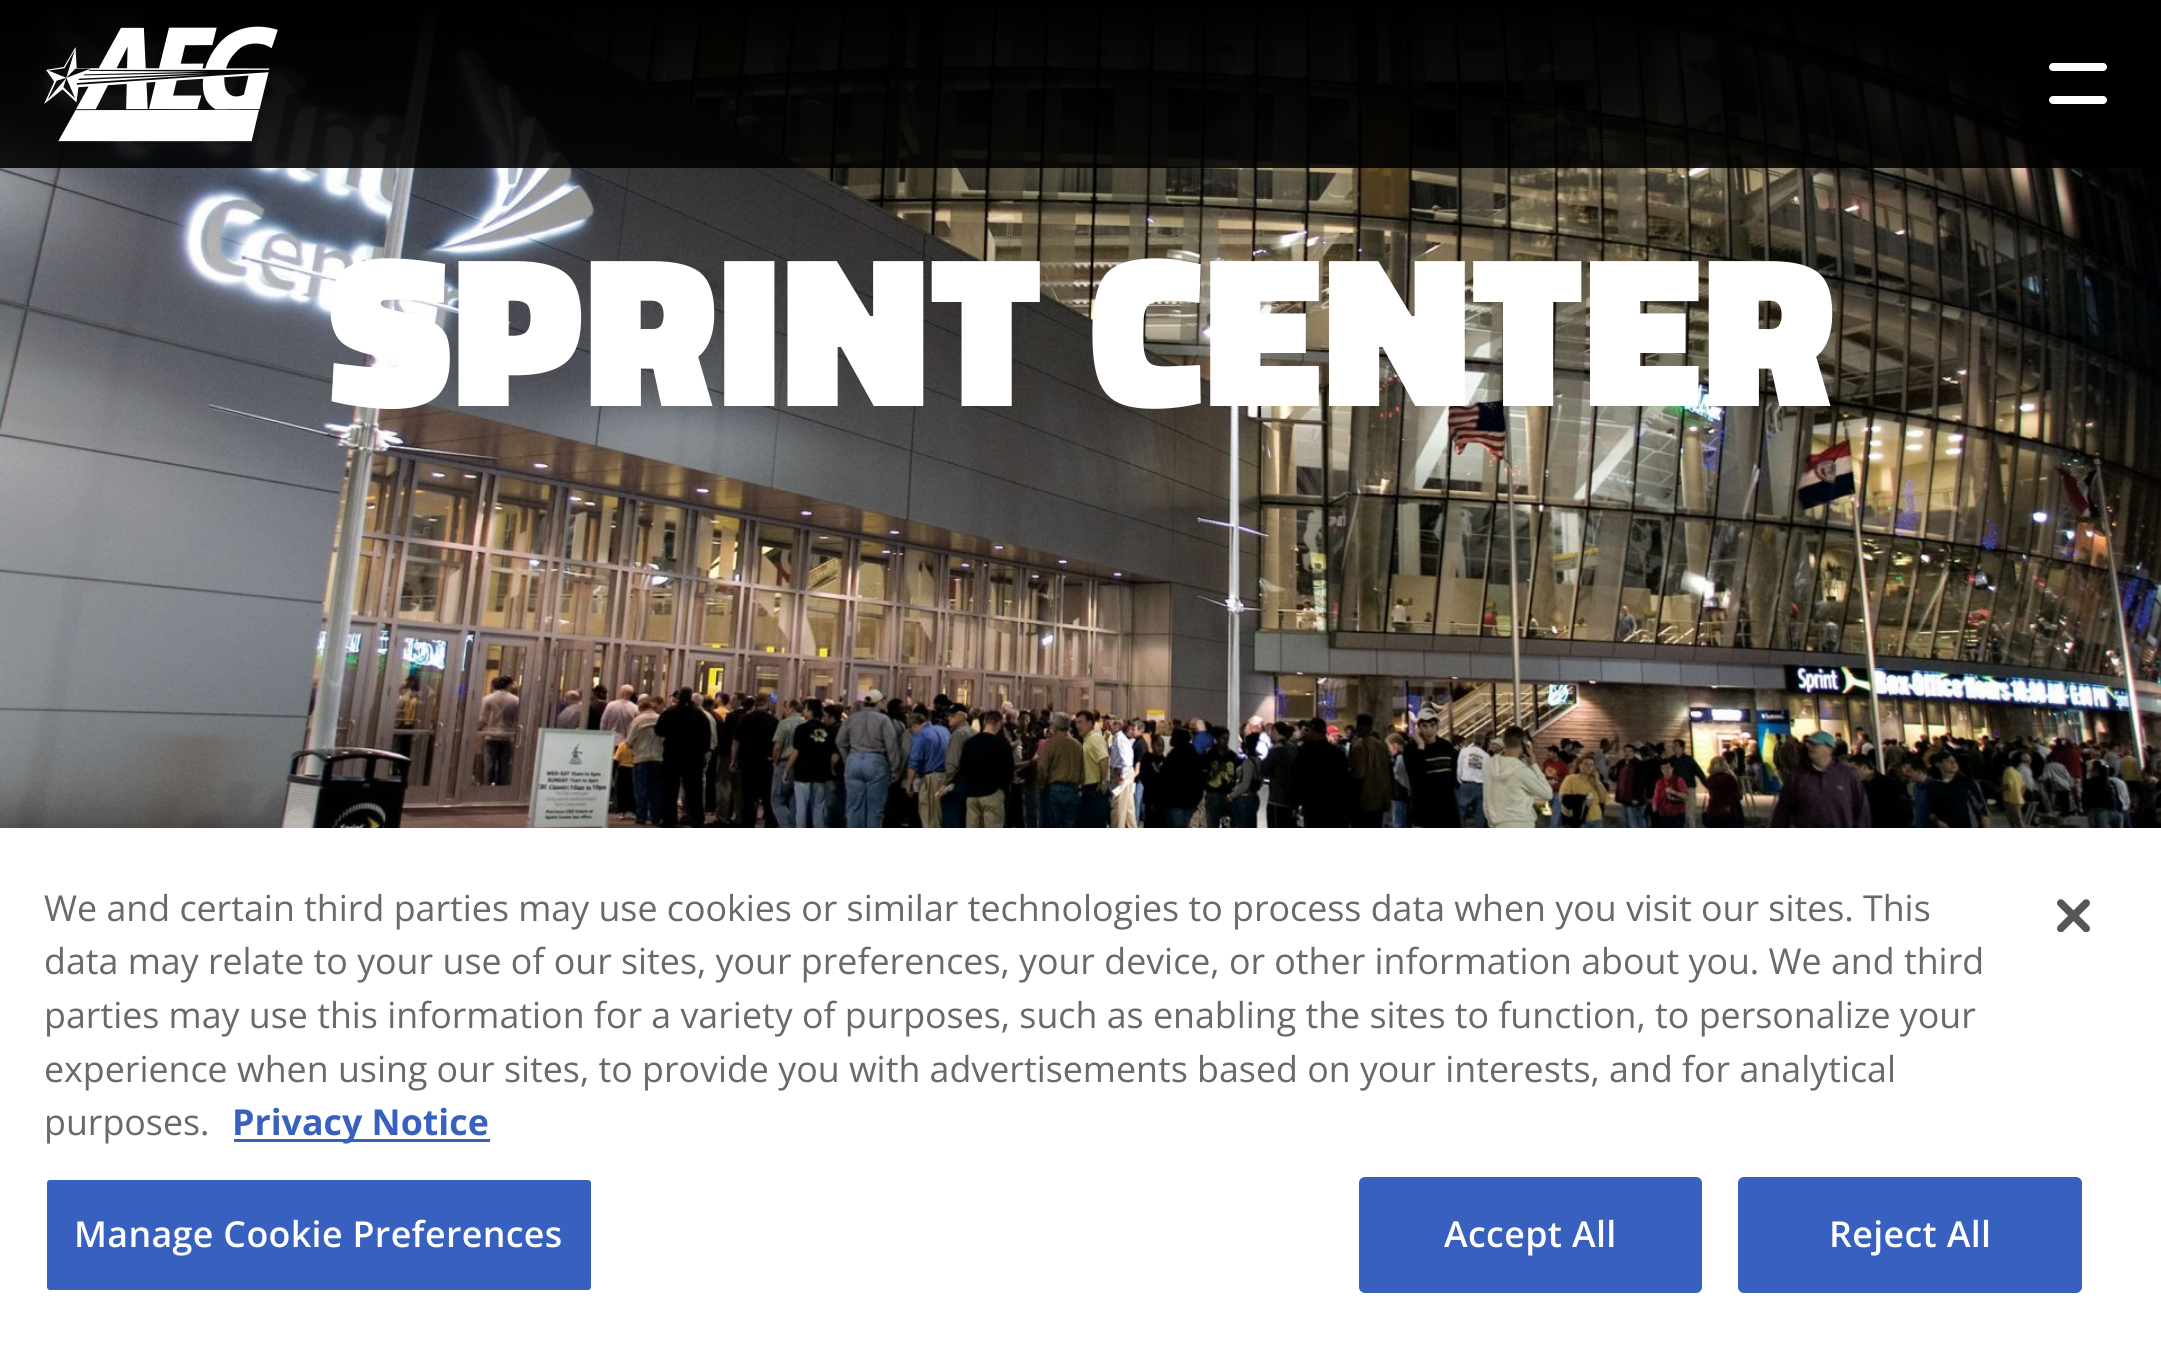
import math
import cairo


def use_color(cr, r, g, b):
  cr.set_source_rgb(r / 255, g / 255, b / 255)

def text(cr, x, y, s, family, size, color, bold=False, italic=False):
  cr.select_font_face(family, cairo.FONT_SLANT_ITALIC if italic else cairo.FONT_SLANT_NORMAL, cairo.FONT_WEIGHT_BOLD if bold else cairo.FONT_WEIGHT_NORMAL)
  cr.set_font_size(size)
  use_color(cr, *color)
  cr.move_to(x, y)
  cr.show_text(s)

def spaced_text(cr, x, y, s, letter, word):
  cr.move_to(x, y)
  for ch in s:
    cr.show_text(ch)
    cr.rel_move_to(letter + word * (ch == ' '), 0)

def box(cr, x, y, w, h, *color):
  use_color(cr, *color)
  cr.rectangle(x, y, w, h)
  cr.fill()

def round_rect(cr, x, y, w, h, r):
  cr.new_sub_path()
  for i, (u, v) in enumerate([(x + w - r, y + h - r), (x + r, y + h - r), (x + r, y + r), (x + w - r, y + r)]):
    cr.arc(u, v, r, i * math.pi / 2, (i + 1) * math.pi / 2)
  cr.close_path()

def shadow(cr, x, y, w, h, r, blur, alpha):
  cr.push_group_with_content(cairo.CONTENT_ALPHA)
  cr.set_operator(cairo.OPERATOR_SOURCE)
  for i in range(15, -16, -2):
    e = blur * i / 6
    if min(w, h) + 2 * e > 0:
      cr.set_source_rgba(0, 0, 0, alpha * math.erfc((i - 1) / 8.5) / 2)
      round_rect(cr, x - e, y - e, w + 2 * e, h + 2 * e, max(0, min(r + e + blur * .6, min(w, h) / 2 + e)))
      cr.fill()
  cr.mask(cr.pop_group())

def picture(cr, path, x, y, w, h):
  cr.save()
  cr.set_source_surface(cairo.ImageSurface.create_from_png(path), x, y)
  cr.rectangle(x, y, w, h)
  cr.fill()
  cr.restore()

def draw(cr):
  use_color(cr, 255, 255, 255)
  cr.paint()
  picture(cr, "img_02.png", 0, 0, 2161, 828)
  picture(cr, "img_01.png", 44, 26, 234, 116)
  use_color(cr, 255, 255, 255)
  round_rect(cr, 2049, 63, 58, 8, 4)
  cr.fill()
  round_rect(cr, 2049, 96, 58, 8, 4)
  cr.fill()
  use_color(cr, 0, 0, 0)
  shadow(cr, 0, 828, 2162, 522, 0, 25, 0.2)
  box(cr, 0, 828, 2161, 520, 255, 255, 255)
  box(cr, 234, 1139, 256, 3, 56, 96, 190)
  round_rect(cr, 45.5, 1178.5, 547, 113, 4.5)
  cr.fill_preserve()
  use_color(cr, 255, 255, 255)
  cr.set_line_width(3)
  cr.stroke()
  use_color(cr, 56, 96, 190)
  round_rect(cr, 1360.5, 1178.5, 340, 113, 4.5)
  cr.fill_preserve()
  cr.stroke()
  round_rect(cr, 1739.5, 1178.5, 341, 113, 4.5)
  cr.fill_preserve()
  cr.stroke()
  picture(cr, "img_03.png", 2057, 899, 33, 33)
  text(cr, 327, 406, "SPRINT CENTER", "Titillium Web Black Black", 216.25, (255, 255, 255))
  text(cr, 44, 921, "We and certain third parties may use cookies or similar technologies to process data when you visit our sites. This", "Open Sans", 35.77, (105, 105, 105))
  text(cr, 44, 974, "data may relate to your use of our sites, your preferences, your device, or other information about you. We and third", "Open Sans", 35.77, (105, 105, 105))
  text(cr, 44, 1028, "parties may use this information for a variety of purposes, such as enabling the sites to function, to personalize your", "Open Sans", 35.77, (105, 105, 105))
  text(cr, 44, 1082, "experience when using our sites, to provide you with advertisements based on your interests, and for analytical", "Open Sans", 35.77, (105, 105, 105))
  text(cr, 44, 1135, "purposes.", "Open Sans", 35.77, (105, 105, 105))
  text(cr, 232, 1135, "Privacy Notice", "Open Sans", 35.77, (56, 96, 190), bold=True)
  cr.select_font_face("Open Sans SemiBold")
  use_color(cr, 255, 255, 255)
  spaced_text(cr, 74, 1247, "Manage Cookie Preferences", 0.35, 0)
  spaced_text(cr, 1444, 1247, "Accept All", 0.35, 0)
  spaced_text(cr, 1829, 1247, "Reject All", 0.35, 0)


surface = cairo.ImageSurface(cairo.FORMAT_RGB24, 2161, 1348)
cr = cairo.Context(surface)
options = cairo.FontOptions()
options.set_hint_metrics(cairo.HINT_METRICS_OFF)
options.set_hint_style(cairo.HINT_STYLE_NONE)
cr.set_font_options(options)
cr.set_miter_limit(4)
draw(cr)
surface.write_to_png("out.png")
